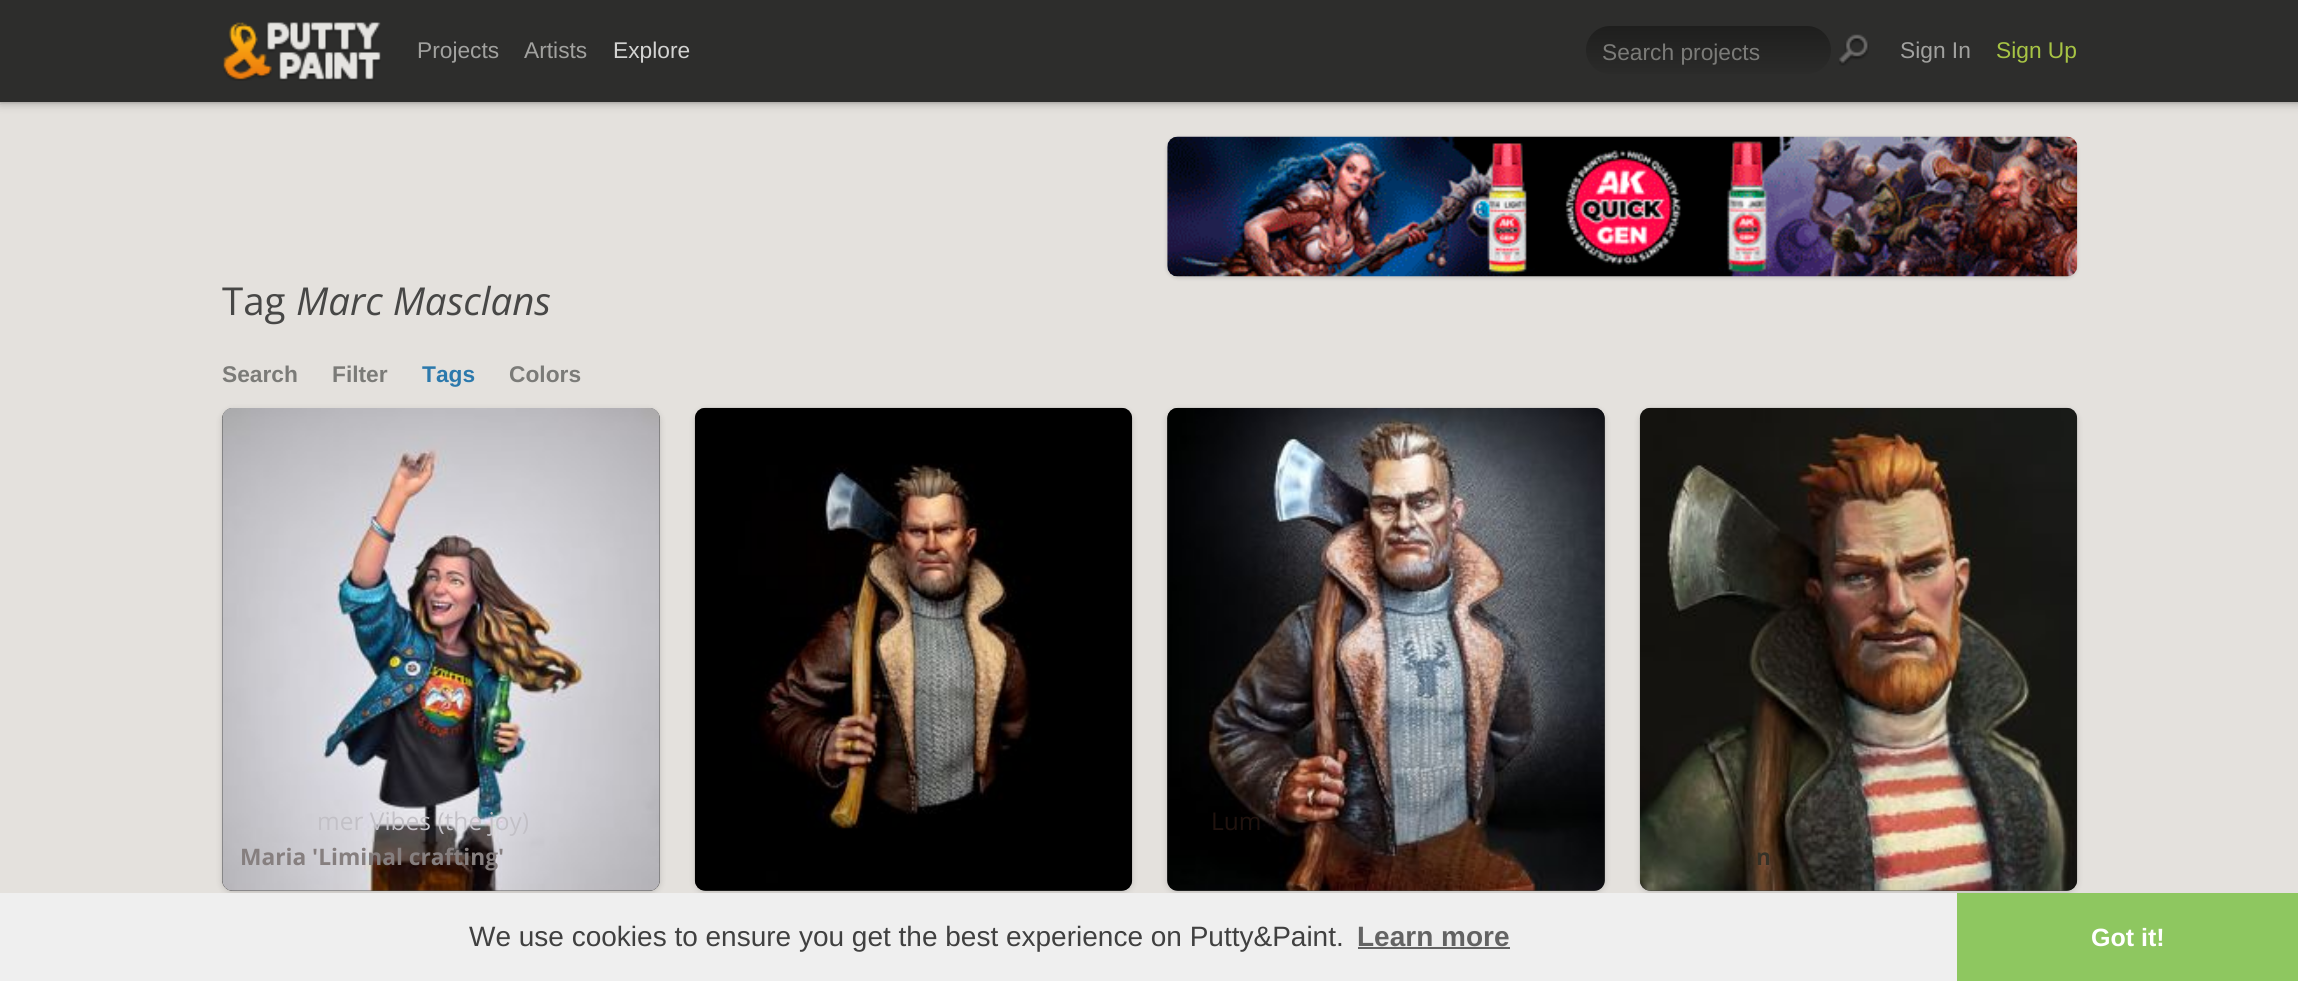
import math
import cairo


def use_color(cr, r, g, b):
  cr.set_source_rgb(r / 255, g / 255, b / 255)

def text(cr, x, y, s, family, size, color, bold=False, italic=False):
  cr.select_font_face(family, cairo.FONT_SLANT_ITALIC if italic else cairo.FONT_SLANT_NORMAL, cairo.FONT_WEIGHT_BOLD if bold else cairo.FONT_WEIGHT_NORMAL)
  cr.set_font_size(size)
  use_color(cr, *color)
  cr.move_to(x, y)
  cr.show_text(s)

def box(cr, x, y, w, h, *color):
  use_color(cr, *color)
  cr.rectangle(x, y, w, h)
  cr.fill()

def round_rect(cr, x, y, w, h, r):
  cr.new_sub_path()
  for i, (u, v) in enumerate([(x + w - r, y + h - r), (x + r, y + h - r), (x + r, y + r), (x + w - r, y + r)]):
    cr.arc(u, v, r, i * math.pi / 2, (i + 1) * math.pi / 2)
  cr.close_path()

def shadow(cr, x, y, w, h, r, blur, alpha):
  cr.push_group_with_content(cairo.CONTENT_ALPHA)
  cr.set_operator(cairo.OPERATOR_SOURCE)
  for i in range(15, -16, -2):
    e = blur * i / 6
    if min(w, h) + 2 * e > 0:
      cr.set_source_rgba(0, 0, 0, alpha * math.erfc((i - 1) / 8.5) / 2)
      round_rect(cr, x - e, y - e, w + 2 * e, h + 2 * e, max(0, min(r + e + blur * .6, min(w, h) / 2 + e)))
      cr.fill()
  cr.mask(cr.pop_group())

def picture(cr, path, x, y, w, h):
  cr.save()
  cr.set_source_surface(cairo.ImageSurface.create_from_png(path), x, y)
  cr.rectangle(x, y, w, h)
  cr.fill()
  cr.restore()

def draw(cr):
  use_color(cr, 228, 225, 221)
  cr.paint()
  use_color(cr, 0, 0, 0)
  shadow(cr, 0, 2, 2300, 101, 0, 1, 0.1)
  shadow(cr, 0, 2, 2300, 101, 0, 5, 0.3)
  box(cr, 0, 0, 2298, 102, 45, 45, 44)
  picture(cr, "img_01.png", 223, 22, 158, 59)
  gradient = cairo.LinearGradient(1708, 26, 1708, 74)
  gradient.add_color_stop_rgba(0, 0.118, 0.118, 0.114, 1)
  gradient.add_color_stop_rgba(1, 0.169, 0.169, 0.165, 1)
  cr.set_source(gradient)
  round_rect(cr, 1586, 26, 245, 48, 24)
  cr.fill()
  picture(cr, "img_02.png", 1839, 34, 30, 32)
  use_color(cr, 0, 0, 0)
  shadow(cr, 1167, 138, 910, 140, 11, 2, 0.15)
  picture(cr, "img_03.png", 1167, 136, 911, 141)
  shadow(cr, 222, 410, 438, 483, 11, 3.5, 0.15)
  use_color(cr, 71, 71, 70)
  round_rect(cr, 222, 408, 438, 483, 11)
  cr.fill()
  picture(cr, "img_04.png", 222, 408, 438, 483)
  use_color(cr, 0, 0, 0)
  shadow(cr, 695, 410, 437, 483, 11, 3.5, 0.15)
  use_color(cr, 71, 71, 70)
  round_rect(cr, 695, 408, 437, 483, 11)
  cr.fill()
  picture(cr, "img_05.png", 694, 407, 439, 484)
  use_color(cr, 0, 0, 0)
  shadow(cr, 1167, 410, 438, 483, 11, 3.5, 0.15)
  use_color(cr, 71, 71, 70)
  round_rect(cr, 1167, 408, 438, 483, 11)
  cr.fill()
  picture(cr, "img_06.png", 1167, 407, 438, 484)
  use_color(cr, 0, 0, 0)
  shadow(cr, 1640, 410, 437, 483, 11, 3.5, 0.15)
  use_color(cr, 71, 71, 70)
  round_rect(cr, 1640, 408, 437, 483, 11)
  cr.fill()
  picture(cr, "img_07.png", 1639, 407, 439, 484)
  box(cr, 0, 893, 1957, 88, 239, 239, 239)
  box(cr, 1358, 947, 152, 2, 99, 99, 99)
  box(cr, 1957, 893, 341, 88, 142, 199, 96)
  text(cr, 417, 58, "Projects", "Liberation Sans", 22.75, (161, 161, 159))
  text(cr, 524, 58, "Artists", "Liberation Sans", 22.75, (161, 161, 159))
  text(cr, 613, 58, "Explore", "Liberation Sans", 22.75, (211, 211, 210))
  text(cr, 1602, 60, "Search projects", "Liberation Sans", 22.75, (123, 123, 120))
  text(cr, 1900, 58, "Sign In", "Liberation Sans", 22.75, (161, 161, 159))
  text(cr, 1996, 58, "Sign Up", "Liberation Sans", 22.75, (167, 196, 68))
  text(cr, 222, 315, "Tag", "Open Sans", 38.5, (71, 71, 70))
  text(cr, 296, 315, "Marc Masclans", "Open Sans", 38.5, (71, 71, 70), italic=True)
  text(cr, 222, 382, "Search", "Liberation Sans", 22.75, (123, 123, 120), bold=True)
  text(cr, 332, 382, "Filter", "Liberation Sans", 22.75, (123, 123, 120), bold=True)
  text(cr, 422, 382, "Tags", "Liberation Sans", 22.75, (44, 121, 172), bold=True)
  text(cr, 509, 382, "Colors", "Liberation Sans", 22.75, (123, 123, 120), bold=True)
  text(cr, 317, 830, "mer Vibes (the joy)", "Open Sans", 24.5, (194, 192, 198))
  text(cr, 240, 865, "Maria 'Liminal crafting'", "Open Sans", 22.75, (134, 127, 127), bold=True)
  text(cr, 1211, 830, "Lum", "Open Sans", 24.5, (33, 19, 15))
  text(cr, 1756, 865, "n", "Open Sans", 22.75, (52, 49, 38), bold=True)
  text(cr, 469, 946, "We use cookies to ensure you get the best experience on Putty&Paint.", "Liberation Sans", 28, (64, 64, 64))
  text(cr, 1357, 946, "Learn more", "Liberation Sans", 28, (99, 99, 99), bold=True)
  text(cr, 2091, 946, "Got it!", "Liberation Sans", 25, (255, 255, 255), bold=True)


surface = cairo.ImageSurface(cairo.FORMAT_RGB24, 2298, 981)
cr = cairo.Context(surface)
options = cairo.FontOptions()
options.set_hint_metrics(cairo.HINT_METRICS_OFF)
options.set_hint_style(cairo.HINT_STYLE_NONE)
cr.set_font_options(options)
cr.set_miter_limit(4)
draw(cr)
surface.write_to_png("out.png")
